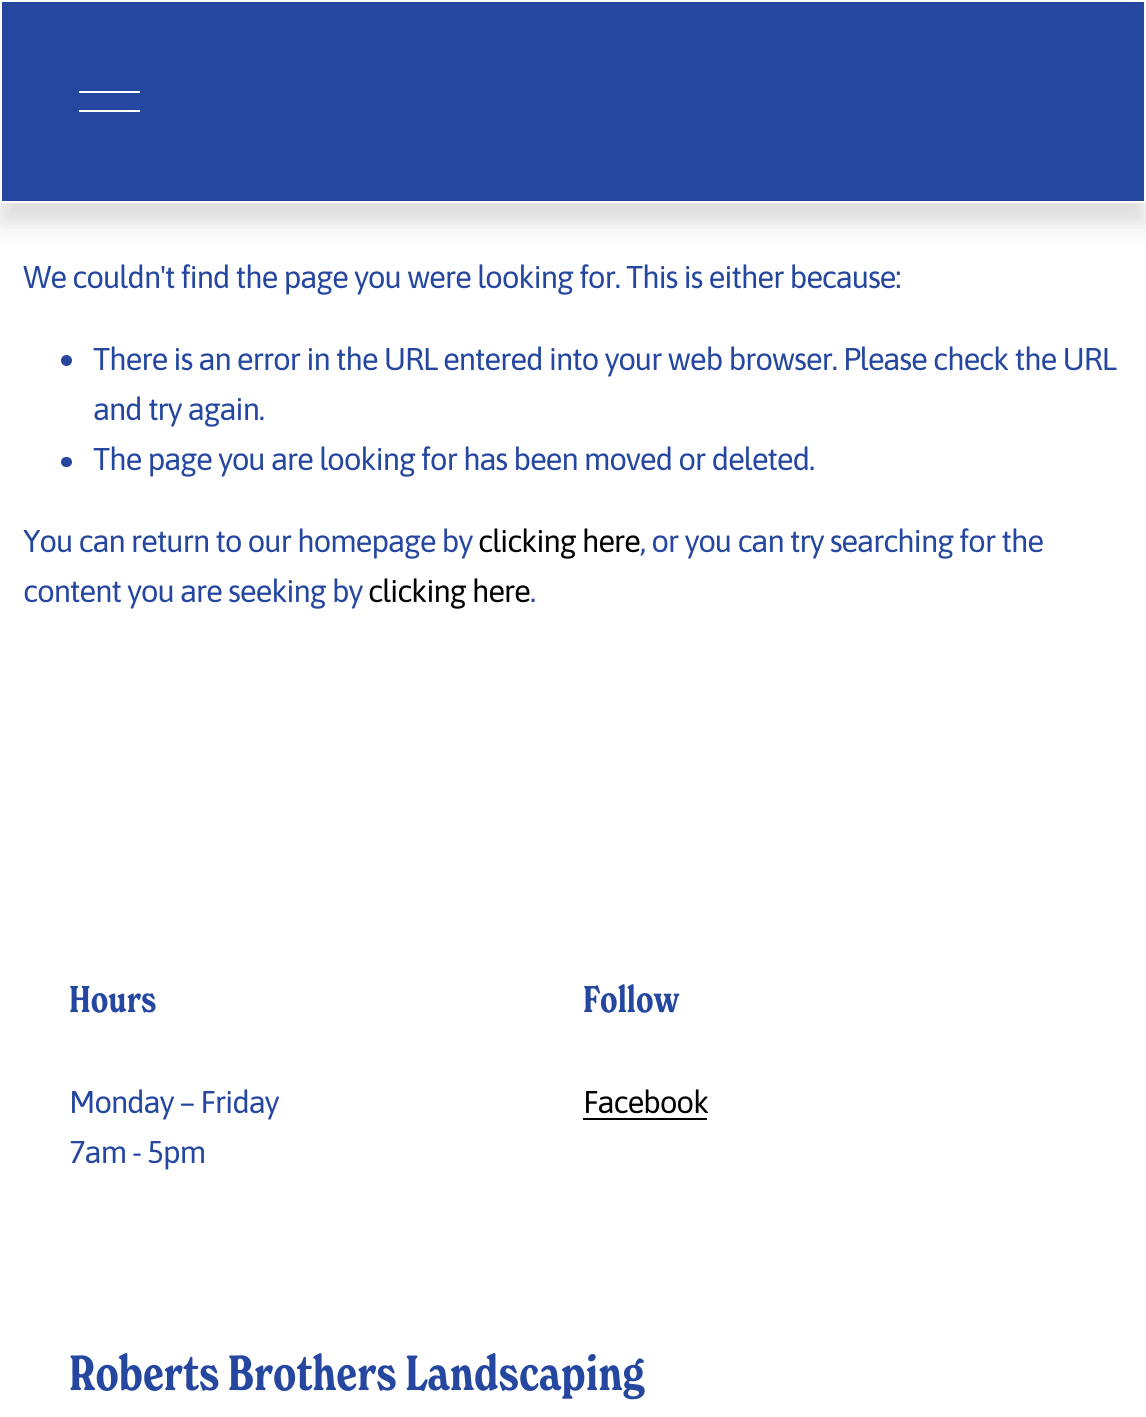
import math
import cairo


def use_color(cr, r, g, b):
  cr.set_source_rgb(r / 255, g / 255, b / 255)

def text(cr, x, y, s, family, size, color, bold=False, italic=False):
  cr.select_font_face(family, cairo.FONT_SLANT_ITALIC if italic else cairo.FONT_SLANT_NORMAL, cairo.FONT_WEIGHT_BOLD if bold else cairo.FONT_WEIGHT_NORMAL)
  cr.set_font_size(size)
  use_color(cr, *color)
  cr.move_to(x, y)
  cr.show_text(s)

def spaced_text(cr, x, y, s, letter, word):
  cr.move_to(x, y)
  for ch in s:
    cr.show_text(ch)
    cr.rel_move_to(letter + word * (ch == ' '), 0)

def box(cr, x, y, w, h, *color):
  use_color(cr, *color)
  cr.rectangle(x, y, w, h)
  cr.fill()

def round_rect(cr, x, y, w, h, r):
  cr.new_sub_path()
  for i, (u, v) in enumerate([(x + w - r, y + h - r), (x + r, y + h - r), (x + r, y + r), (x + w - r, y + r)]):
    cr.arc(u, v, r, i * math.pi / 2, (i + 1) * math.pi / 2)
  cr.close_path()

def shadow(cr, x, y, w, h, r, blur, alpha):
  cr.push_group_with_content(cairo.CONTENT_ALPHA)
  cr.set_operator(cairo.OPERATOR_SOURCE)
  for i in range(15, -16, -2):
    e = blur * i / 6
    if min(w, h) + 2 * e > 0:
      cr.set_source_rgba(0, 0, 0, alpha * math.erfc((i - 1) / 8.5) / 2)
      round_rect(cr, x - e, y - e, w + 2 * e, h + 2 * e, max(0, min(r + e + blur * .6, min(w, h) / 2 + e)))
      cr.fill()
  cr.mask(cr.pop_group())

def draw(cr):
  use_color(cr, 255, 255, 255)
  cr.paint()
  use_color(cr, 222, 222, 222)
  shadow(cr, 0, 21, 1146, 203, 0, 10.5, 1)
  use_color(cr, 37, 71, 160)
  cr.rectangle(1, 1, 1144, 201)
  cr.fill_preserve()
  use_color(cr, 255, 255, 255)
  cr.stroke()
  box(cr, 79, 91, 61, 2, 255, 255, 255)
  box(cr, 79, 110, 61, 2, 255, 255, 255)
  use_color(cr, 37, 71, 160)
  cr.arc(66.5, 360.5, 5.5, 0, 2 * math.pi)
  cr.fill()
  round_rect(cr, 61, 457, 11, 10, 5)
  cr.fill()
  box(cr, 583, 1118, 124, 2, 0, 0, 0)
  cr.select_font_face("Asap")
  cr.set_font_size(31.4)
  use_color(cr, 37, 71, 160)
  spaced_text(cr, 23, 288, "We couldn't find the page you were looking for. This is either because:", -1.25, 0)
  spaced_text(cr, 93, 370, "There is an error in the URL entered into your web browser. Please check the URL", -1.25, 0)
  spaced_text(cr, 93, 420, "and try again.", -1.25, 0)
  spaced_text(cr, 93, 470, "The page you are looking for has been moved or deleted.", -1.25, 0)
  spaced_text(cr, 23, 552, "You can return to our homepage by", -1.25, 0)
  use_color(cr, 0, 0, 0)
  spaced_text(cr, 478, 552, "clicking here", -1.25, 0)
  use_color(cr, 37, 71, 160)
  spaced_text(cr, 640, 552, ", or you can try searching for the", -1.25, 0)
  spaced_text(cr, 23, 602, "content you are seeking by", -1.25, 0)
  use_color(cr, 0, 0, 0)
  spaced_text(cr, 368, 602, "clicking here", -1.25, 0)
  use_color(cr, 37, 71, 160)
  spaced_text(cr, 530, 602, ".", -1.25, 0)
  text(cr, 69, 1012, "Hours", "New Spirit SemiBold", 36.5, (37, 71, 160))
  cr.select_font_face("Asap")
  cr.set_font_size(31.4)
  spaced_text(cr, 69, 1113, "Monday – Friday", -1.25, 0)
  spaced_text(cr, 69, 1163, "7am - 5pm", -1.25, 0)
  text(cr, 583, 1012, "Follow", "New Spirit SemiBold", 36.5, (37, 71, 160))
  cr.select_font_face("Asap")
  cr.set_font_size(31.4)
  use_color(cr, 0, 0, 0)
  spaced_text(cr, 583, 1113, "Facebook", -1.25, 0)
  text(cr, 69, 1390, "Roberts Brothers Landscaping", "New Spirit SemiBold", 48.4, (37, 71, 160))


surface = cairo.ImageSurface(cairo.FORMAT_RGB24, 1146, 1417)
cr = cairo.Context(surface)
options = cairo.FontOptions()
options.set_hint_metrics(cairo.HINT_METRICS_OFF)
options.set_hint_style(cairo.HINT_STYLE_NONE)
cr.set_font_options(options)
cr.set_miter_limit(4)
draw(cr)
surface.write_to_png("out.png")
